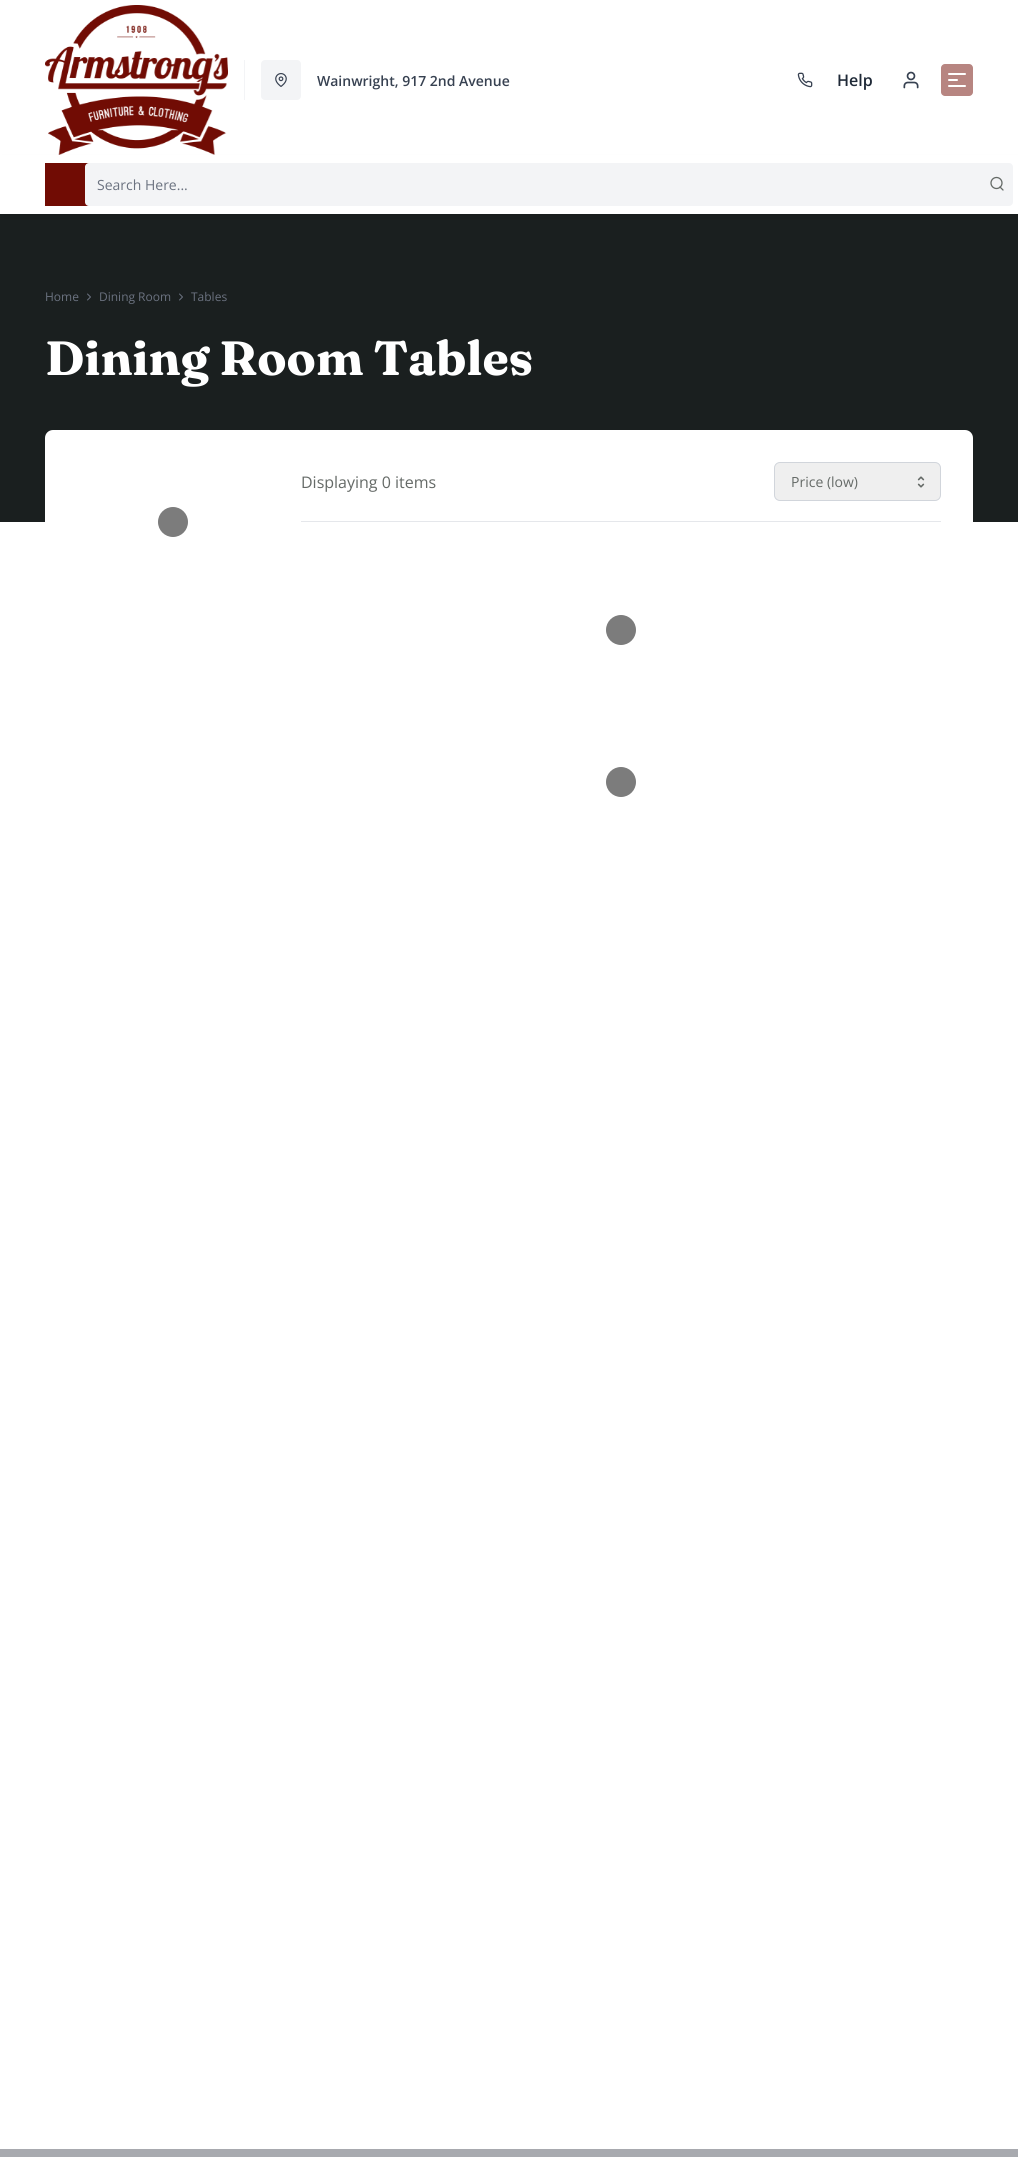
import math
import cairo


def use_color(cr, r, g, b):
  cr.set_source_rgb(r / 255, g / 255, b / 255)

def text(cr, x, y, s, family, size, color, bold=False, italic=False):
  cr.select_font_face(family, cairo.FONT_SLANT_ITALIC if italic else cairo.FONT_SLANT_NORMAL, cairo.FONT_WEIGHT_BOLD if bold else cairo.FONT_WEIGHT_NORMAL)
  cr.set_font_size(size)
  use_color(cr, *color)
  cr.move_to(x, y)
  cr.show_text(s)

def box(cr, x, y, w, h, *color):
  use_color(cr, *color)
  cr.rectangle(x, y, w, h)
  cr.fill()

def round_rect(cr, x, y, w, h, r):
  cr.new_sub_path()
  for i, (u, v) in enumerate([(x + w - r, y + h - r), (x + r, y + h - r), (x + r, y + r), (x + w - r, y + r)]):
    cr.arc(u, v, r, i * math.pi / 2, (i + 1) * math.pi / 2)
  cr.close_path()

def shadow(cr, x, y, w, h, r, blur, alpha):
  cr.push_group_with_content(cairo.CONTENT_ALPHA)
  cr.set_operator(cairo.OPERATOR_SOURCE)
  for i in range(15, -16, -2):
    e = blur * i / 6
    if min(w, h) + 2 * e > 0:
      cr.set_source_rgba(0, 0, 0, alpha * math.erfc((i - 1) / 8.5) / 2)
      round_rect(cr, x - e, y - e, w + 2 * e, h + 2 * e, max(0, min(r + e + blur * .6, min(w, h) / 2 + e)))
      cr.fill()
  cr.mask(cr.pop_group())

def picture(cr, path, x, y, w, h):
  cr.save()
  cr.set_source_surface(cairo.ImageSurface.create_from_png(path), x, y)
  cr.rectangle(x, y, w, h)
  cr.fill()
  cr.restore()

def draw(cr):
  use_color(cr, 255, 255, 255)
  cr.paint()
  box(cr, 0, 214, 1018, 308, 26, 31, 31)
  use_color(cr, 0, 0, 0)
  shadow(cr, 2, 158, 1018, 59, 0, 2.5, 0.07)
  picture(cr, "img_01.png", 45, 5, 183, 150)
  box(cr, 244, 60, 1, 40, 243, 244, 246)
  round_rect(cr, 261, 60, 40, 40, 4)
  cr.fill()
  picture(cr, "img_02.png", 275, 73, 12, 14)
  picture(cr, "img_03.png", 797, 72, 16, 16)
  picture(cr, "img_04.png", 903, 71, 16, 18)
  use_color(cr, 183, 133, 129)
  round_rect(cr, 941, 64, 32, 32, 4)
  cr.fill()
  cr.new_path()
  cr.move_to(949, 74)
  cr.line_to(965, 74)
  cr.move_to(949, 80)
  cr.line_to(957, 80)
  cr.move_to(949, 86)
  cr.line_to(965, 86)
  use_color(cr, 255, 255, 255)
  cr.set_line_cap(cairo.LINE_CAP_ROUND)
  cr.set_line_join(cairo.LINE_JOIN_ROUND)
  cr.stroke()
  box(cr, 0, 155, 1018, 59, 255, 255, 255)
  box(cr, 45, 163, 44, 43, 113, 12, 4)
  use_color(cr, 243, 244, 246)
  round_rect(cr, 85, 163, 928, 43, 4)
  cr.fill()
  cr.arc(996.5, 183, 5.5, 0, 2 * math.pi)
  use_color(cr, 101, 106, 103)
  cr.set_line_width(1.3)
  cr.set_line_cap(cairo.LINE_CAP_BUTT)
  cr.set_line_join(cairo.LINE_JOIN_MITER)
  cr.stroke()
  cr.new_path()
  cr.move_to(1003, 190)
  cr.line_to(1000, 187)
  cr.set_line_cap(cairo.LINE_CAP_ROUND)
  cr.set_line_join(cairo.LINE_JOIN_ROUND)
  cr.stroke()
  cr.new_path()
  cr.move_to(87.5, 300)
  cr.line_to(90.5, 297)
  cr.line_to(87.5, 294)
  use_color(cr, 107, 114, 128)
  cr.set_line_width(1)
  cr.stroke()
  cr.new_path()
  cr.move_to(179.5, 300)
  cr.line_to(182.5, 297)
  cr.line_to(179.5, 294)
  cr.stroke()
  use_color(cr, 255, 255, 255)
  round_rect(cr, 45, 430, 928, 216, 8)
  cr.fill()
  box(cr, 301, 521, 640, 1, 229, 231, 235)
  use_color(cr, 239, 239, 239)
  round_rect(cr, 774.5, 462.5, 166, 38, 5.5)
  cr.fill_preserve()
  use_color(cr, 209, 213, 219)
  cr.set_line_cap(cairo.LINE_CAP_BUTT)
  cr.set_line_join(cairo.LINE_JOIN_MITER)
  cr.stroke()
  picture(cr, "img_05.png", 917, 476, 8, 12)
  use_color(cr, 124, 124, 124)
  cr.arc(621, 630, 15, 0, 2 * math.pi)
  cr.fill()
  cr.arc(621, 782, 15, 0, 2 * math.pi)
  cr.fill()
  cr.arc(173, 522, 15, 0, 2 * math.pi)
  cr.fill()
  box(cr, 0, 2149, 1018, 8, 168, 170, 175)
  text(cr, 317, 86, "Wainwright, 917 2nd Avenue", "Open Sans SemiBold", 14, (55, 65, 81))
  text(cr, 837, 86, "Help", "Open Sans SemiBold", 16, (31, 41, 55))
  text(cr, 97, 190, "Search Here...", "Open Sans", 14, (107, 114, 128))
  text(cr, 45, 301, "Home", "Open Sans", 12, (107, 114, 128))
  text(cr, 99, 301, "Dining Room", "Open Sans", 12, (107, 114, 128))
  text(cr, 191, 301, "Tables", "Open Sans", 12, (107, 114, 128))
  text(cr, 45, 375, "Dining Room Tables", "Fraunces", 48, (255, 255, 255), bold=True)
  text(cr, 301, 488, "Displaying 0 items", "Open Sans", 16, (101, 106, 103))
  text(cr, 791, 487, "Price (low)", "Open Sans", 14, (101, 106, 103))


surface = cairo.ImageSurface(cairo.FORMAT_RGB24, 1018, 2157)
cr = cairo.Context(surface)
options = cairo.FontOptions()
options.set_hint_metrics(cairo.HINT_METRICS_OFF)
options.set_hint_style(cairo.HINT_STYLE_NONE)
cr.set_font_options(options)
cr.set_miter_limit(4)
draw(cr)
surface.write_to_png("out.png")
